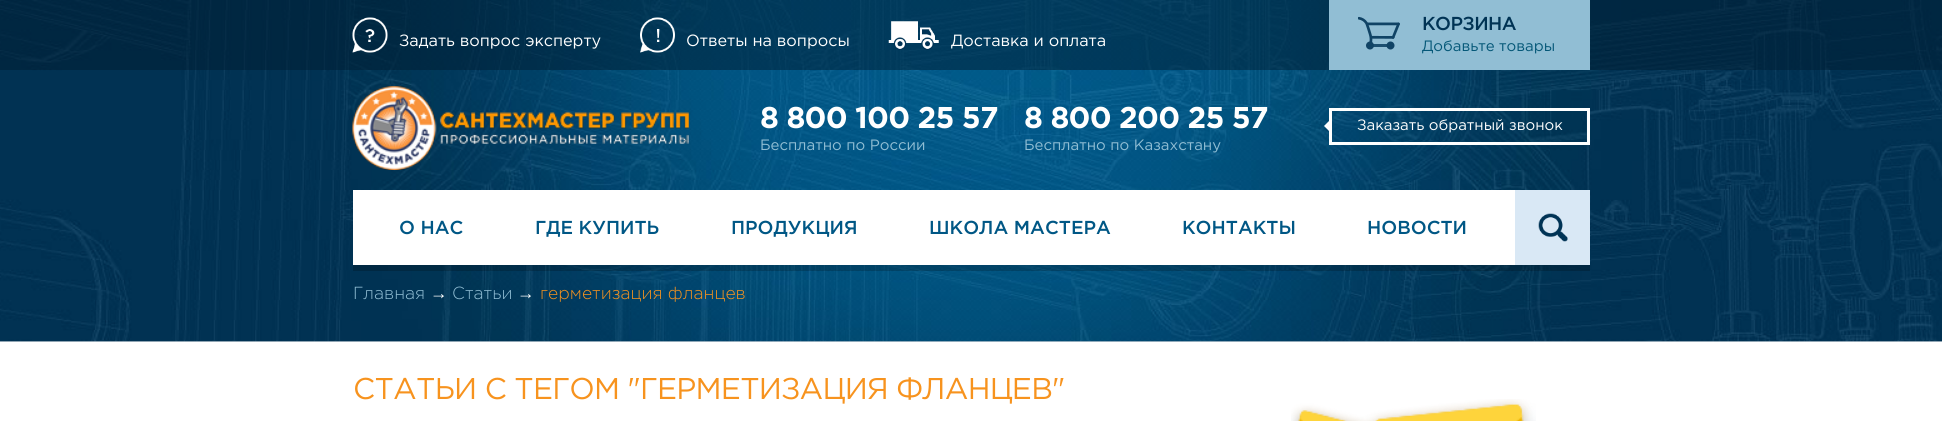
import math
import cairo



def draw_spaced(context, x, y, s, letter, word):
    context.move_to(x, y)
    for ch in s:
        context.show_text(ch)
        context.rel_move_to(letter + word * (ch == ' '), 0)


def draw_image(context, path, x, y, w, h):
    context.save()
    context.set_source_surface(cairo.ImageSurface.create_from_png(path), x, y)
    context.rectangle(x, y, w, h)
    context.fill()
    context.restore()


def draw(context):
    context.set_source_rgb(1, 1, 1)
    context.paint()
    draw_image(context, "images/1.png", 0, 0, 1942, 342)
    context.set_source_rgba(0, 29 / 255, 49 / 255, 0.5)
    context.rectangle(0, 0, 1942, 70)
    context.fill()
    draw_image(context, "images/2.png", 352, 17, 36, 36)
    draw_image(context, "images/3.png", 640, 17, 35, 36)
    draw_image(context, "images/4.png", 888, 21, 51, 29)
    context.set_source_rgb(145 / 255, 190 / 255, 212 / 255)
    context.rectangle(1329, 0, 261, 70)
    context.fill()
    draw_image(context, "images/5.png", 1358, 16, 42, 34)
    draw_image(context, "images/6.png", 352, 86, 337, 84)
    context.rectangle(1330.5, 109.5, 258, 34)
    context.set_source_rgb(1, 1, 1)
    context.set_line_width(3)
    context.stroke()
    context.new_path()
    context.move_to(1329, 121)
    context.line_to(1329, 131)
    context.line_to(1324, 126)
    context.close_path()
    context.fill()
    context.set_source_rgba(0, 0, 0, 0.2)
    context.rectangle(353, 265, 1237, 6)
    context.fill()
    context.set_source_rgb(1, 1, 1)
    context.rectangle(353, 190, 1162, 75)
    context.fill()
    context.set_source_rgb(217 / 255, 232 / 255, 245 / 255)
    context.rectangle(1515, 190, 75, 75)
    context.fill()
    draw_image(context, "images/7.png", 1538, 213, 30, 29)
    draw_image(context, "images/8.png", 1291, 399, 245, 22)
    context.select_font_face("Gotham")
    context.set_font_size(16.25)
    context.set_source_rgb(1, 1, 1)
    context.move_to(399, 46)
    context.show_text("Задать вопрос эксперту")
    context.move_to(686, 46)
    context.show_text("Ответы на вопросы")
    context.move_to(951, 46)
    context.show_text("Доставка и оплата")
    context.select_font_face("Gotham Medium")
    context.set_font_size(18.75)
    context.set_source_rgb(0, 51 / 255, 84 / 255)
    draw_spaced(context, 1422, 30, "КОРЗИНА", -0.5, 0)
    context.select_font_face("Gotham")
    context.set_font_size(15)
    context.set_source_rgb(4 / 255, 87 / 255, 119 / 255)
    context.move_to(1422, 51)
    context.show_text("Добавьте товары")
    context.select_font_face("Gotham", cairo.FontSlant.NORMAL, cairo.FontWeight.BOLD)
    context.set_font_size(30)
    context.set_source_rgb(1, 1, 1)
    draw_spaced(context, 760, 128, "8 800 100 25 57", -0.75, 0)
    context.select_font_face("Gotham")
    context.set_font_size(15)
    context.set_source_rgb(145 / 255, 190 / 255, 212 / 255)
    context.move_to(760, 150)
    context.show_text("Бесплатно по России")
    context.select_font_face("Gotham", cairo.FontSlant.NORMAL, cairo.FontWeight.BOLD)
    context.set_font_size(30)
    context.set_source_rgb(1, 1, 1)
    draw_spaced(context, 1024, 128, "8 800 200 25 57", -0.75, 0)
    context.select_font_face("Gotham")
    context.set_font_size(15)
    context.set_source_rgb(145 / 255, 190 / 255, 212 / 255)
    context.move_to(1024, 150)
    context.show_text("Бесплатно по Казахстану")
    context.set_source_rgb(1, 1, 1)
    context.move_to(1357, 130)
    context.show_text("Заказать обратный звонок")
    context.select_font_face("Gotham Medium")
    context.set_font_size(18.75)
    context.set_source_rgb(0, 87 / 255, 133 / 255)
    context.move_to(399, 234)
    context.show_text("О НАС")
    context.move_to(535, 234)
    context.show_text("ГДЕ КУПИТЬ")
    context.move_to(731, 234)
    context.show_text("ПРОДУКЦИЯ")
    context.move_to(929, 234)
    context.show_text("ШКОЛА МАСТЕРА")
    context.move_to(1182, 234)
    context.show_text("КОНТАКТЫ")
    context.move_to(1367, 234)
    context.show_text("НОВОСТИ")
    context.select_font_face("Gotham Light")
    context.set_font_size(17.5)
    context.set_source_rgb(145 / 255, 190 / 255, 212 / 255)
    context.move_to(353, 299)
    context.show_text("Главная")
    context.select_font_face("Liberation Sans")
    context.set_source_rgb(1, 1, 1)
    context.move_to(430, 299)
    context.show_text("→")
    context.select_font_face("Gotham Light")
    context.set_source_rgb(145 / 255, 190 / 255, 212 / 255)
    context.move_to(452, 299)
    context.show_text("Статьи")
    context.select_font_face("Liberation Sans")
    context.set_source_rgb(1, 1, 1)
    context.move_to(517, 299)
    context.show_text("→")
    context.select_font_face("Gotham Light")
    context.set_source_rgb(247 / 255, 147 / 255, 30 / 255)
    context.move_to(540, 299)
    context.show_text("герметизация фланцев")
    context.select_font_face("Gotham")
    context.set_font_size(30)
    draw_spaced(context, 353, 399, "СТАТЬИ С ТЕГОМ \"ГЕРМЕТИЗАЦИЯ ФЛАНЦЕВ\"", -0.75, 0)


surface = cairo.ImageSurface(cairo.Format.RGB24, 1942, 421)
context = cairo.Context(surface)
options = cairo.FontOptions()
options.set_hint_metrics(cairo.HintMetrics.OFF)
options.set_hint_style(cairo.HintStyle.NONE)
context.set_font_options(options)
context.set_miter_limit(4)
draw(context)
surface.write_to_png("out.png")
